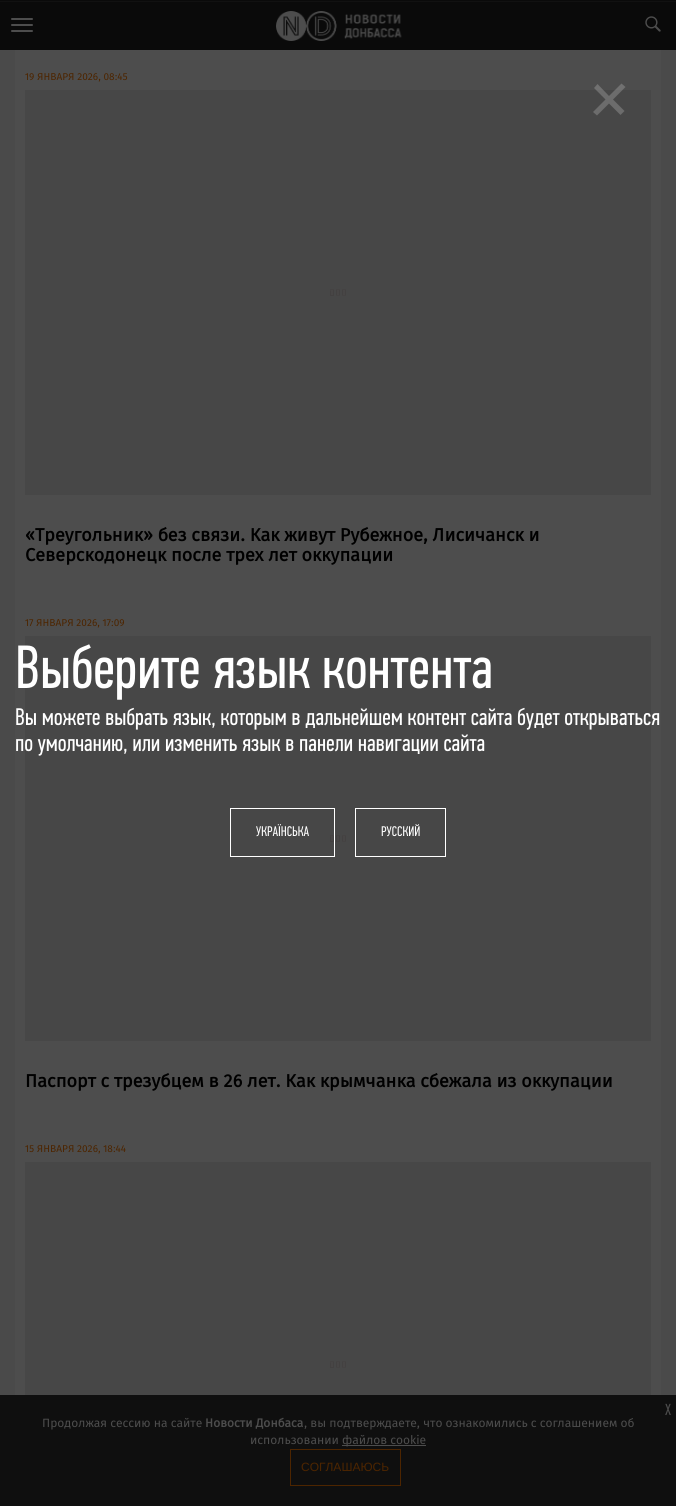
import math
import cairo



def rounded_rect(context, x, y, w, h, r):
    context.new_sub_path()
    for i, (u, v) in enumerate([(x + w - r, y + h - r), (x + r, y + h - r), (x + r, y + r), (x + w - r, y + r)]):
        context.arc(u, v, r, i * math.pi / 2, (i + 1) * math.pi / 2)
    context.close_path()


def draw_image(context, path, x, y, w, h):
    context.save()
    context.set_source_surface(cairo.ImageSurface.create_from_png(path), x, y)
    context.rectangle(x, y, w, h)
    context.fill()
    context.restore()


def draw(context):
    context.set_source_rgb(74 / 255, 74 / 255, 74 / 255)
    context.paint()
    context.set_source_rgb(10 / 255, 10 / 255, 10 / 255)
    context.rectangle(0, 0, 676, 50)
    context.fill()
    context.set_source_rgb(17 / 255, 17 / 255, 17 / 255)
    context.rectangle(0, 1, 676, 1)
    context.fill()
    draw_image(context, "images/1.png", 276, 11, 126, 30)
    draw_image(context, "images/2.png", 645, 16, 16, 16)
    context.set_source_rgb(77 / 255, 77 / 255, 77 / 255)
    rounded_rect(context, 11, 18, 22, 2, 1)
    context.fill()
    rounded_rect(context, 11, 24, 22, 2, 1)
    context.fill()
    rounded_rect(context, 11, 30, 22, 2, 1)
    context.fill()
    context.set_source_rgb(15 / 255, 15 / 255, 15 / 255)
    context.rectangle(0, 1395, 676, 111)
    context.fill()
    context.set_source_rgb(77 / 255, 77 / 255, 77 / 255)
    context.rectangle(15, 50, 646, 1345)
    context.fill()
    context.set_source_rgb(71 / 255, 71 / 255, 71 / 255)
    context.rectangle(25, 90, 626, 405)
    context.fill()
    draw_image(context, "images/3.png", 330, 289, 16, 7)
    context.rectangle(25, 636, 626, 405)
    context.fill()
    draw_image(context, "images/3.png", 330, 835, 16, 7)
    context.rectangle(25, 1162, 626, 233)
    context.fill()
    draw_image(context, "images/3.png", 330, 1361, 16, 7)
    draw_image(context, "images/4.png", 665, 1403, 6, 12)
    context.set_source_rgb(77 / 255, 77 / 255, 77 / 255)
    context.rectangle(342, 1445, 84, 1)
    context.fill()
    context.rectangle(290.5, 1449.5, 110, 36)
    context.set_source_rgb(77 / 255, 37 / 255, 0)
    context.set_line_width(1)
    context.stroke()
    context.set_source_rgba(1, 1, 1, 0.2)
    context.new_path()
    context.move_to(609, 103.5)
    context.line_to(597, 115.5)
    context.line_to(593, 112)
    context.line_to(605.5, 99.5)
    context.line_to(594, 88)
    context.line_to(597.5, 84)
    context.line_to(609, 96)
    context.line_to(621.5, 83.5)
    context.line_to(625.5, 87)
    context.line_to(613, 99.5)
    context.line_to(624.5, 111)
    context.line_to(620.5, 115)
    context.close_path()
    context.fill()
    draw_image(context, "images/5.png", 18, 644, 473, 56)
    draw_image(context, "images/6.png", 16, 707, 644, 23)
    draw_image(context, "images/7.png", 16, 734, 469, 22)
    context.rectangle(230.5, 808.5, 104, 48)
    context.set_source_rgb(1, 1, 1)
    context.stroke()
    draw_image(context, "images/8.png", 256, 824, 53, 13)
    context.rectangle(355.5, 808.5, 90, 48)
    context.stroke()
    draw_image(context, "images/9.png", 381, 824, 39, 13)
    context.select_font_face("Fira Sans")
    context.set_font_size(10)
    context.set_source_rgb(77 / 255, 37 / 255, 0)
    context.move_to(25, 80)
    context.show_text("19 ЯНВАРЯ 2026, 08:45")
    context.select_font_face("Fira Sans", cairo.FontSlant.NORMAL, cairo.FontWeight.BOLD)
    context.set_font_size(18)
    context.set_source_rgb(0, 0, 0)
    context.move_to(25, 541)
    context.show_text("«Треугольник» без связи. Как живут Рубежное, Лисичанск и")
    context.move_to(25, 561)
    context.show_text("Северскодонецк после трех лет оккупации")
    context.select_font_face("Fira Sans")
    context.set_font_size(10)
    context.set_source_rgb(77 / 255, 37 / 255, 0)
    context.move_to(25, 626)
    context.show_text("17 ЯНВАРЯ 2026, 17:09")
    context.select_font_face("Fira Sans", cairo.FontSlant.NORMAL, cairo.FontWeight.BOLD)
    context.set_font_size(18)
    context.set_source_rgb(0, 0, 0)
    context.move_to(25, 1087)
    context.show_text("Паспорт с трезубцем в 26 лет. Как крымчанка сбежала из оккупации")
    context.select_font_face("Fira Sans")
    context.set_font_size(10)
    context.set_source_rgb(77 / 255, 37 / 255, 0)
    context.move_to(25, 1152)
    context.show_text("15 ЯНВАРЯ 2026, 18:44")
    context.set_font_size(12)
    context.set_source_rgb(77 / 255, 77 / 255, 77 / 255)
    context.move_to(42, 1427)
    context.show_text("Продолжая сессию на сайте")
    context.select_font_face("Fira Sans", cairo.FontSlant.NORMAL, cairo.FontWeight.BOLD)
    context.move_to(205, 1427)
    context.show_text("Новости Донбаса")
    context.select_font_face("Fira Sans")
    context.move_to(304, 1427)
    context.show_text(", вы подтверждаете, что ознакомились с соглашением об")
    context.move_to(250, 1444)
    context.show_text("использовании")
    context.move_to(342, 1444)
    context.show_text("файлов cookie")
    context.select_font_face("Liberation Sans")
    context.set_source_rgb(77 / 255, 37 / 255, 0)
    context.move_to(301, 1471)
    context.show_text("СОГЛАШАЮСЬ")


surface = cairo.ImageSurface(cairo.Format.RGB24, 676, 1506)
context = cairo.Context(surface)
options = cairo.FontOptions()
options.set_hint_metrics(cairo.HintMetrics.OFF)
options.set_hint_style(cairo.HintStyle.NONE)
context.set_font_options(options)
context.set_miter_limit(4)
draw(context)
surface.write_to_png("out.png")
